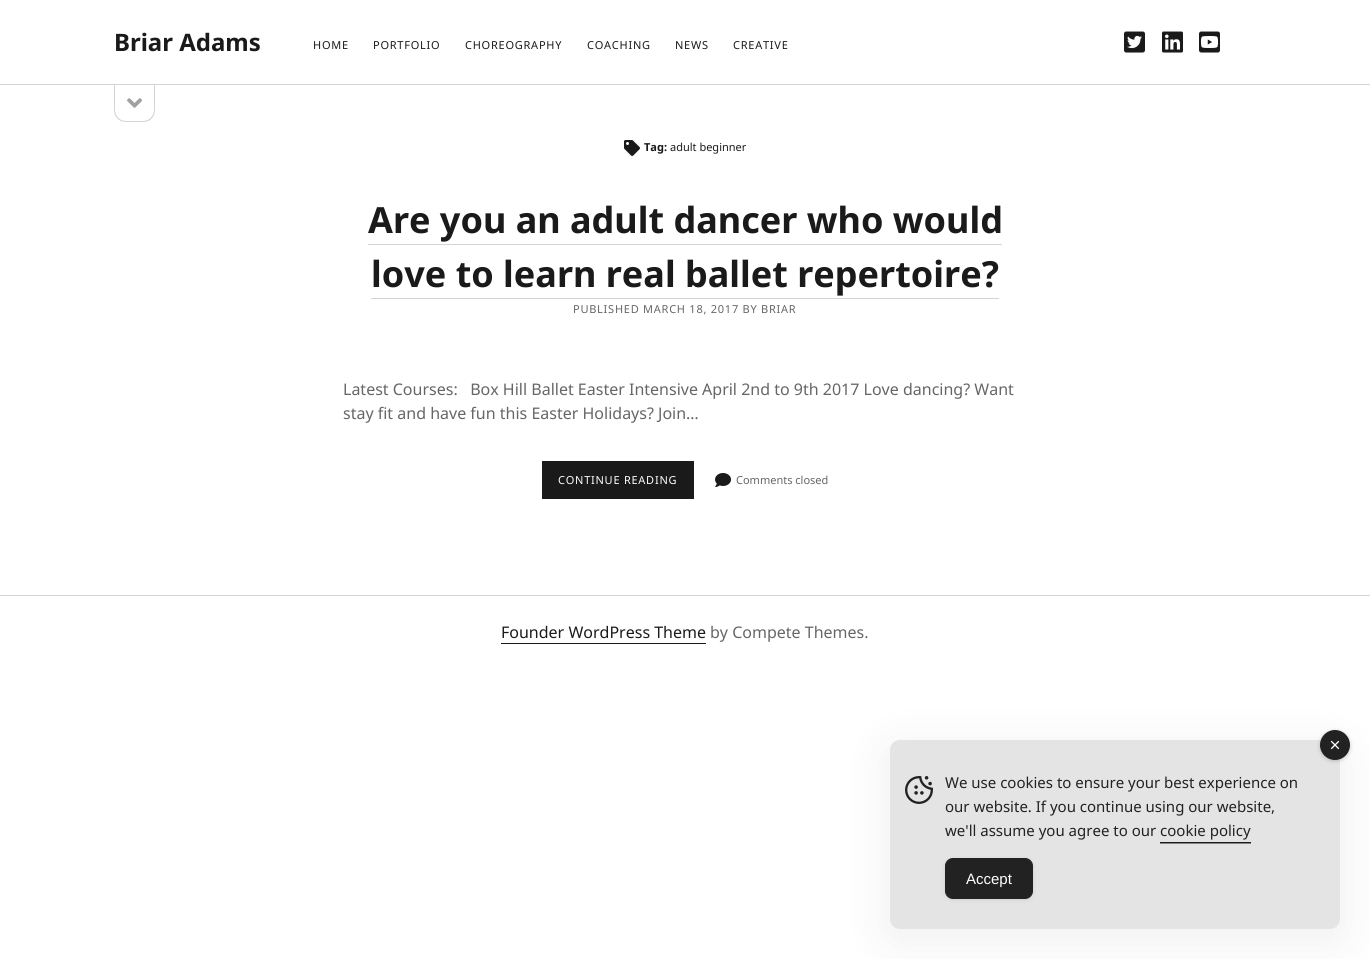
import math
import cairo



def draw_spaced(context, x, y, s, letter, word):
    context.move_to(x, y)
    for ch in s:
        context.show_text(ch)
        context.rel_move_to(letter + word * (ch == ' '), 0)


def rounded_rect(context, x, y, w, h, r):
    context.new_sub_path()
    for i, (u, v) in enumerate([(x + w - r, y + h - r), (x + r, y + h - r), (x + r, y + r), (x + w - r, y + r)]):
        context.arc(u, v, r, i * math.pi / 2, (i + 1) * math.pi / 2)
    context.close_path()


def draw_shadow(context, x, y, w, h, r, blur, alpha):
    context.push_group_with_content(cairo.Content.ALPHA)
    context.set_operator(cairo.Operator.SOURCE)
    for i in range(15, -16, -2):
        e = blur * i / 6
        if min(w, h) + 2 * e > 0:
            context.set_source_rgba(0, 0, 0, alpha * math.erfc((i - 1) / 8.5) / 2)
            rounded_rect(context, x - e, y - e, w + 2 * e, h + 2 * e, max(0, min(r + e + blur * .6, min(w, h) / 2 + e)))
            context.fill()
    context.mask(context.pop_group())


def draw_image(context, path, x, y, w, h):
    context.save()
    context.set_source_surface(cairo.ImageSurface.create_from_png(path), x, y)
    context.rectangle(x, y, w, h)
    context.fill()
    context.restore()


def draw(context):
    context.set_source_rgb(1, 1, 1)
    context.paint()
    context.set_source_rgb(212 / 255, 212 / 255, 212 / 255)
    context.rectangle(0, 84, 1370, 1)
    context.fill()
    draw_image(context, "images/1.png", 1124, 31, 21, 22)
    draw_image(context, "images/2.png", 1162, 31, 21, 22)
    draw_image(context, "images/3.png", 1199, 31, 21, 22)
    context.set_fill_rule(cairo.FillRule.EVEN_ODD)
    context.new_path()
    context.move_to(114, 85)
    context.line_to(155, 85)
    context.line_to(155, 110)
    context.curve_to(155, 117, 150, 122, 143, 122)
    context.line_to(126, 122)
    context.curve_to(119, 122, 114, 117, 114, 110)
    context.close_path()
    context.move_to(115, 85)
    context.line_to(154, 85)
    context.line_to(154, 110)
    context.curve_to(154, 116, 149, 121, 143, 121)
    context.line_to(126, 121)
    context.curve_to(120, 121, 115, 116, 115, 110)
    context.close_path()
    context.fill()
    draw_image(context, "images/4.png", 127, 98, 15, 10)
    draw_image(context, "images/5.png", 624, 140, 16, 16)
    context.rectangle(368, 244, 634, 1)
    context.fill()
    context.rectangle(371, 298, 628, 1)
    context.fill()
    context.set_source_rgb(26 / 255, 26 / 255, 26 / 255)
    context.rectangle(542, 461, 152, 38)
    context.fill()
    draw_image(context, "images/6.png", 715, 473, 16, 14)
    context.set_source_rgb(212 / 255, 212 / 255, 212 / 255)
    context.rectangle(0, 595, 1370, 1)
    context.fill()
    context.set_source_rgb(26 / 255, 26 / 255, 26 / 255)
    context.rectangle(501, 643, 205, 1)
    context.fill()
    context.set_source_rgb(0, 0, 0)
    draw_shadow(context, 880, 740, 470, 209, 20, 20, 0.05)
    context.set_source_rgb(228 / 255, 228 / 255, 228 / 255)
    rounded_rect(context, 890, 740, 450, 189, 10)
    context.fill()
    context.set_source_rgb(0, 0, 0)
    draw_shadow(context, 1320, 731, 30, 30, 15, 2, 0.2)
    context.set_source_rgb(34 / 255, 34 / 255, 34 / 255)
    context.arc(1335, 745, 15, 0, 2 * math.pi)
    context.fill()
    draw_image(context, "images/7.png", 1330, 740, 10, 10)
    draw_image(context, "images/8.png", 905, 776, 28, 28)
    context.set_source_rgb(26 / 255, 26 / 255, 26 / 255)
    context.rectangle(1160, 842, 91, 1)
    context.fill()
    context.set_source_rgb(131 / 255, 131 / 255, 131 / 255)
    context.rectangle(1160, 843, 91, 1)
    context.fill()
    context.set_source_rgb(0, 0, 0)
    draw_shadow(context, 945, 859, 88, 41, 8, 2, 0.1)
    context.set_source_rgb(34 / 255, 34 / 255, 34 / 255)
    rounded_rect(context, 945.5, 858.5, 87, 40, 7.5)
    context.fill_preserve()
    context.set_line_width(1)
    context.stroke()
    context.select_font_face("Noto Sans", cairo.FontSlant.NORMAL, cairo.FontWeight.BOLD)
    context.set_font_size(24)
    context.set_source_rgb(26 / 255, 26 / 255, 26 / 255)
    context.move_to(114, 51)
    context.show_text("Briar Adams")
    context.select_font_face("Noto Sans")
    context.set_font_size(11)
    draw_spaced(context, 313, 49, "HOME", 0.75, 0)
    draw_spaced(context, 373, 49, "PORTFOLIO", 0.75, 0)
    draw_spaced(context, 465, 49, "CHOREOGRAPHY", 0.75, 0)
    draw_spaced(context, 587, 49, "COACHING", 0.75, 0)
    draw_spaced(context, 675, 49, "NEWS", 0.75, 0)
    draw_spaced(context, 733, 49, "CREATIVE", 0.75, 0)
    context.select_font_face("Noto Sans", cairo.FontSlant.NORMAL, cairo.FontWeight.BOLD)
    context.move_to(644, 151)
    context.show_text("Tag:")
    context.select_font_face("Noto Sans")
    context.move_to(670, 151)
    context.show_text("adult beginner")
    context.select_font_face("Noto Sans", cairo.FontSlant.NORMAL, cairo.FontWeight.BOLD)
    context.set_font_size(36)
    context.move_to(368, 233)
    context.show_text("Are you an adult dancer who would")
    context.move_to(371, 287)
    context.show_text("love to learn real ballet repertoire?")
    context.select_font_face("Noto Sans")
    context.set_font_size(11)
    context.set_source_rgb(102 / 255, 102 / 255, 102 / 255)
    draw_spaced(context, 573, 313, "PUBLISHED MARCH 18, 2017 BY BRIAR", 0.75, 0)
    context.set_font_size(16)
    context.move_to(343, 395)
    context.show_text("Latest Courses:   Box Hill Ballet Easter Intensive April 2nd to 9th 2017 Love dancing? Want")
    context.move_to(343, 419)
    context.show_text("stay fit and have fun this Easter Holidays? Join…")
    context.set_font_size(11)
    context.set_source_rgb(1, 1, 1)
    draw_spaced(context, 558, 484, "CONTINUE READING", 0.75, 0)
    context.set_source_rgb(102 / 255, 102 / 255, 102 / 255)
    context.move_to(736, 484)
    context.show_text("Comments closed")
    context.set_font_size(16)
    context.set_source_rgb(26 / 255, 26 / 255, 26 / 255)
    context.move_to(501, 638)
    context.show_text("Founder WordPress Theme")
    context.set_source_rgb(102 / 255, 102 / 255, 102 / 255)
    context.move_to(710, 638)
    context.show_text("by Compete Themes.")
    context.set_font_size(15)
    context.set_source_rgb(34 / 255, 34 / 255, 34 / 255)
    context.move_to(945, 788)
    context.show_text("We use cookies to ensure your best experience on")
    context.move_to(945, 812)
    context.show_text("our website. If you continue using our website,")
    context.move_to(945, 836)
    context.show_text("we'll assume you agree to our cookie policy")
    context.select_font_face("Liberation Sans")
    context.set_source_rgb(1, 1, 1)
    context.move_to(966, 884)
    context.show_text("Accept")


surface = cairo.ImageSurface(cairo.Format.RGB24, 1370, 959)
context = cairo.Context(surface)
options = cairo.FontOptions()
options.set_hint_metrics(cairo.HintMetrics.OFF)
options.set_hint_style(cairo.HintStyle.NONE)
context.set_font_options(options)
context.set_miter_limit(4)
draw(context)
surface.write_to_png("out.png")
